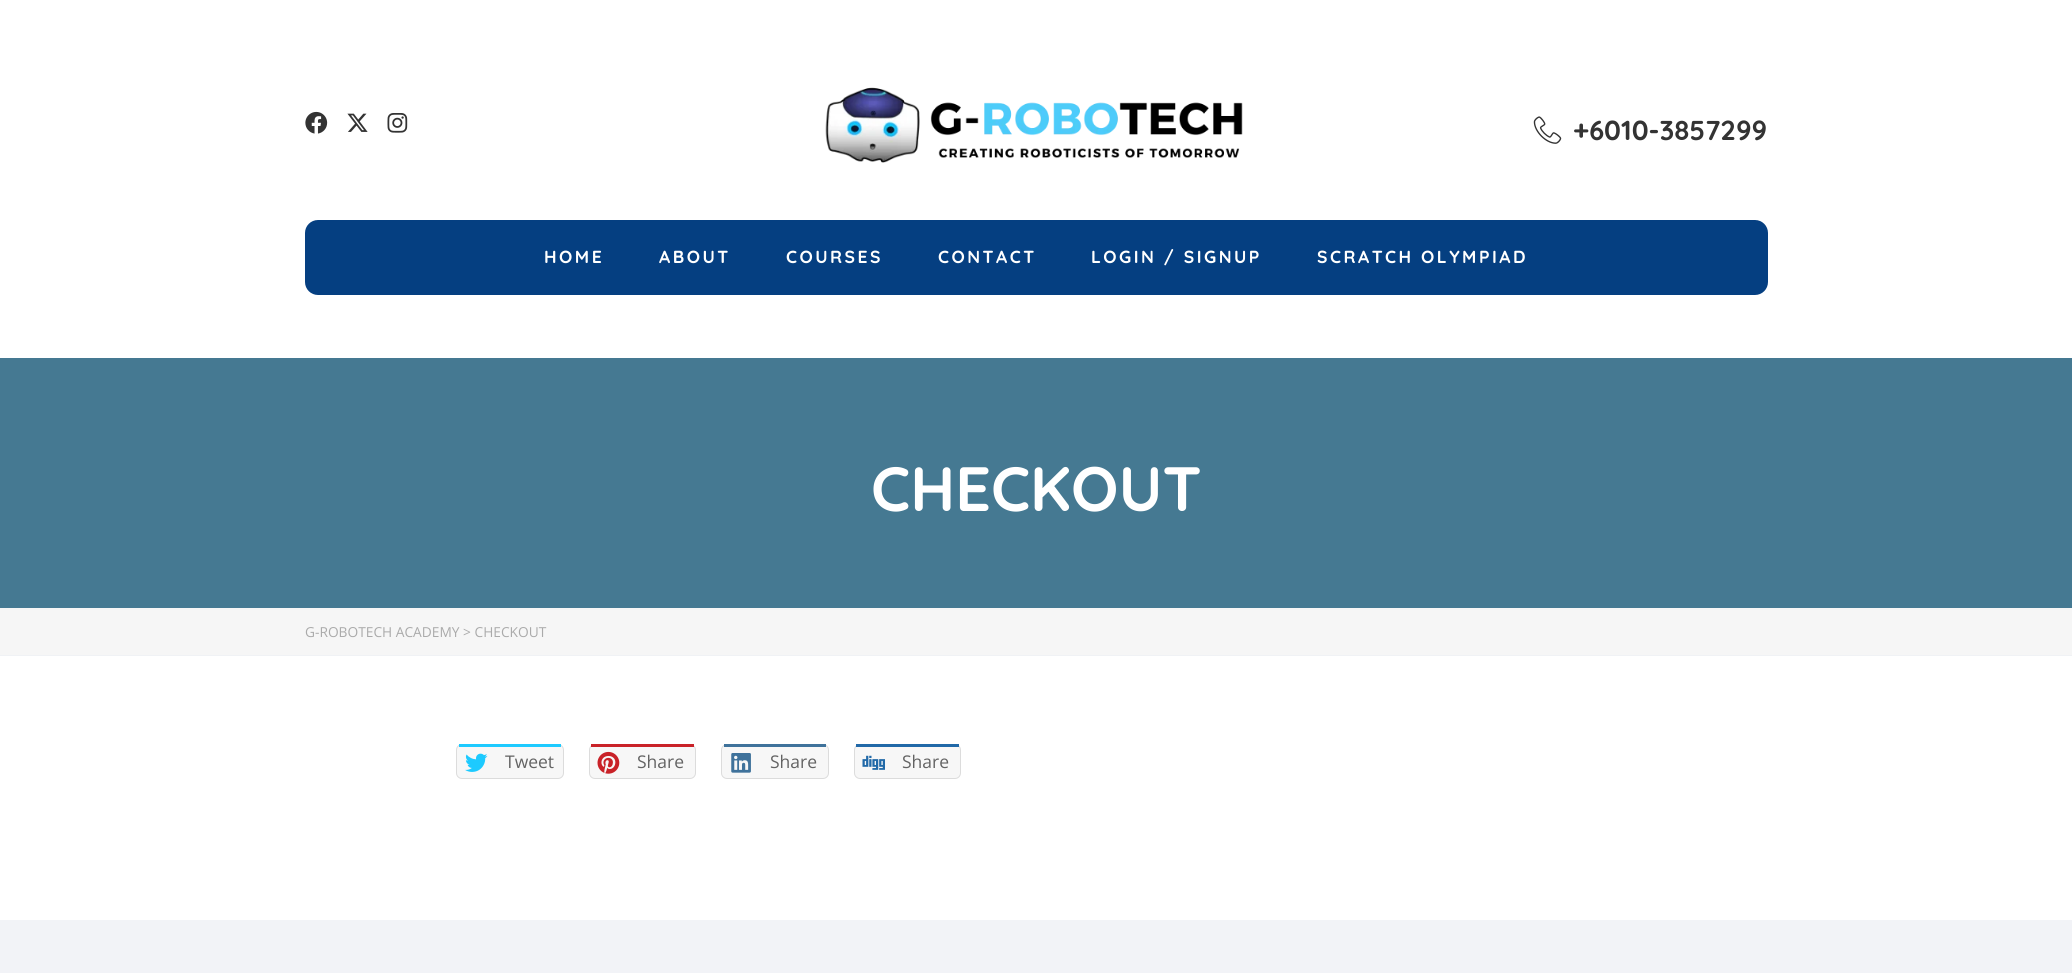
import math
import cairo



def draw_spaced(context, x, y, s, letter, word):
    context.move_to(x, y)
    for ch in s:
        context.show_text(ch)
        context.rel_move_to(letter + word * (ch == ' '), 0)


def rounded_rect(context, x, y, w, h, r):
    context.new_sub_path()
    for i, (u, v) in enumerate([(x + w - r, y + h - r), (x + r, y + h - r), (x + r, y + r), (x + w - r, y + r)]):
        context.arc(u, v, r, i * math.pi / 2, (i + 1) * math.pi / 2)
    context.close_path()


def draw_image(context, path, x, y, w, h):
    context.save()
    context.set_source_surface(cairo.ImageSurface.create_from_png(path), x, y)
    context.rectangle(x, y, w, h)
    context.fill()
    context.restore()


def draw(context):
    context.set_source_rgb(1, 1, 1)
    context.paint()
    draw_image(context, "images/1.png", 305, 111, 23, 23)
    draw_image(context, "images/2.png", 347, 113, 21, 19)
    draw_image(context, "images/3.png", 387, 113, 21, 20)
    draw_image(context, "images/4.png", 825, 87, 418, 76)
    draw_image(context, "images/5.png", 1533, 116, 29, 28)
    context.set_source_rgb(5 / 255, 63 / 255, 129 / 255)
    rounded_rect(context, 305, 220, 1463, 75, 13)
    context.fill()
    context.set_source_rgb(69 / 255, 121 / 255, 146 / 255)
    context.rectangle(0, 358, 2072, 250)
    context.fill()
    context.set_source_rgb(246 / 255, 246 / 255, 246 / 255)
    context.rectangle(0, 608, 2072, 47)
    context.fill()
    context.set_source_rgb(240 / 255, 242 / 255, 245 / 255)
    context.rectangle(0, 655, 2072, 1)
    context.fill()
    context.set_source_rgb(247 / 255, 247 / 255, 247 / 255)
    rounded_rect(context, 456.5, 744.5, 107, 34, 5.5)
    context.fill_preserve()
    context.set_source_rgb(220 / 255, 220 / 255, 220 / 255)
    context.set_line_width(1)
    context.stroke()
    context.set_source_rgb(29 / 255, 202 / 255, 1)
    context.rectangle(459, 744, 102, 3)
    context.fill()
    draw_image(context, "images/6.png", 465, 753, 23, 19)
    context.set_source_rgb(247 / 255, 247 / 255, 247 / 255)
    rounded_rect(context, 589.5, 744.5, 106, 34, 5.5)
    context.fill_preserve()
    context.set_source_rgb(220 / 255, 220 / 255, 220 / 255)
    context.stroke()
    context.set_source_rgb(201 / 255, 34 / 255, 40 / 255)
    context.rectangle(591, 744, 103, 3)
    context.fill()
    draw_image(context, "images/7.png", 597, 751, 23, 23)
    context.set_source_rgb(247 / 255, 247 / 255, 247 / 255)
    rounded_rect(context, 721.5, 744.5, 107, 34, 5.5)
    context.fill_preserve()
    context.set_source_rgb(220 / 255, 220 / 255, 220 / 255)
    context.stroke()
    context.set_source_rgb(63 / 255, 114 / 255, 155 / 255)
    context.rectangle(724, 744, 102, 3)
    context.fill()
    draw_image(context, "images/8.png", 731, 753, 20, 20)
    context.set_source_rgb(247 / 255, 247 / 255, 247 / 255)
    rounded_rect(context, 854.5, 744.5, 106, 34, 5.5)
    context.fill_preserve()
    context.set_source_rgb(220 / 255, 220 / 255, 220 / 255)
    context.stroke()
    context.set_source_rgb(33 / 255, 105 / 255, 168 / 255)
    context.rectangle(856, 744, 103, 3)
    context.fill()
    draw_image(context, "images/9.png", 862, 755, 23, 15)
    context.set_source_rgb(242 / 255, 243 / 255, 247 / 255)
    context.rectangle(0, 920, 2072, 53)
    context.fill()
    context.select_font_face("Quicksand Light")
    context.set_font_size(27.5)
    context.set_source_rgb(51 / 255, 51 / 255, 51 / 255)
    context.move_to(1573, 140)
    context.show_text("+6010-3857299")
    context.set_font_size(17.5)
    context.set_source_rgb(1, 1, 1)
    draw_spaced(context, 544, 263, "HOME", 2.5, 0)
    draw_spaced(context, 659, 263, "ABOUT", 2.5, 0)
    draw_spaced(context, 786, 263, "COURSES", 2.5, 0)
    draw_spaced(context, 938, 263, "CONTACT", 2.5, 0)
    draw_spaced(context, 1091, 263, "LOGIN / SIGNUP", 2.5, 0)
    draw_spaced(context, 1317, 263, "SCRATCH OLYMPIAD", 2.5, 0)
    context.set_font_size(62.5)
    context.move_to(871, 511)
    context.show_text("CHECKOUT")
    context.select_font_face("Open Sans")
    context.set_font_size(13.75)
    context.set_source_rgb(170 / 255, 170 / 255, 170 / 255)
    context.move_to(305, 637)
    context.show_text("G-ROBOTECH ACADEMY > CHECKOUT")
    context.set_font_size(17.5)
    context.set_source_rgb(99 / 255, 99 / 255, 99 / 255)
    context.move_to(505, 768)
    context.show_text("Tweet")
    context.move_to(637, 768)
    context.show_text("Share")
    context.move_to(770, 768)
    context.show_text("Share")
    context.move_to(902, 768)
    context.show_text("Share")


surface = cairo.ImageSurface(cairo.Format.RGB24, 2072, 973)
context = cairo.Context(surface)
options = cairo.FontOptions()
options.set_hint_metrics(cairo.HintMetrics.OFF)
options.set_hint_style(cairo.HintStyle.NONE)
context.set_font_options(options)
context.set_miter_limit(4)
draw(context)
surface.write_to_png("out.png")
